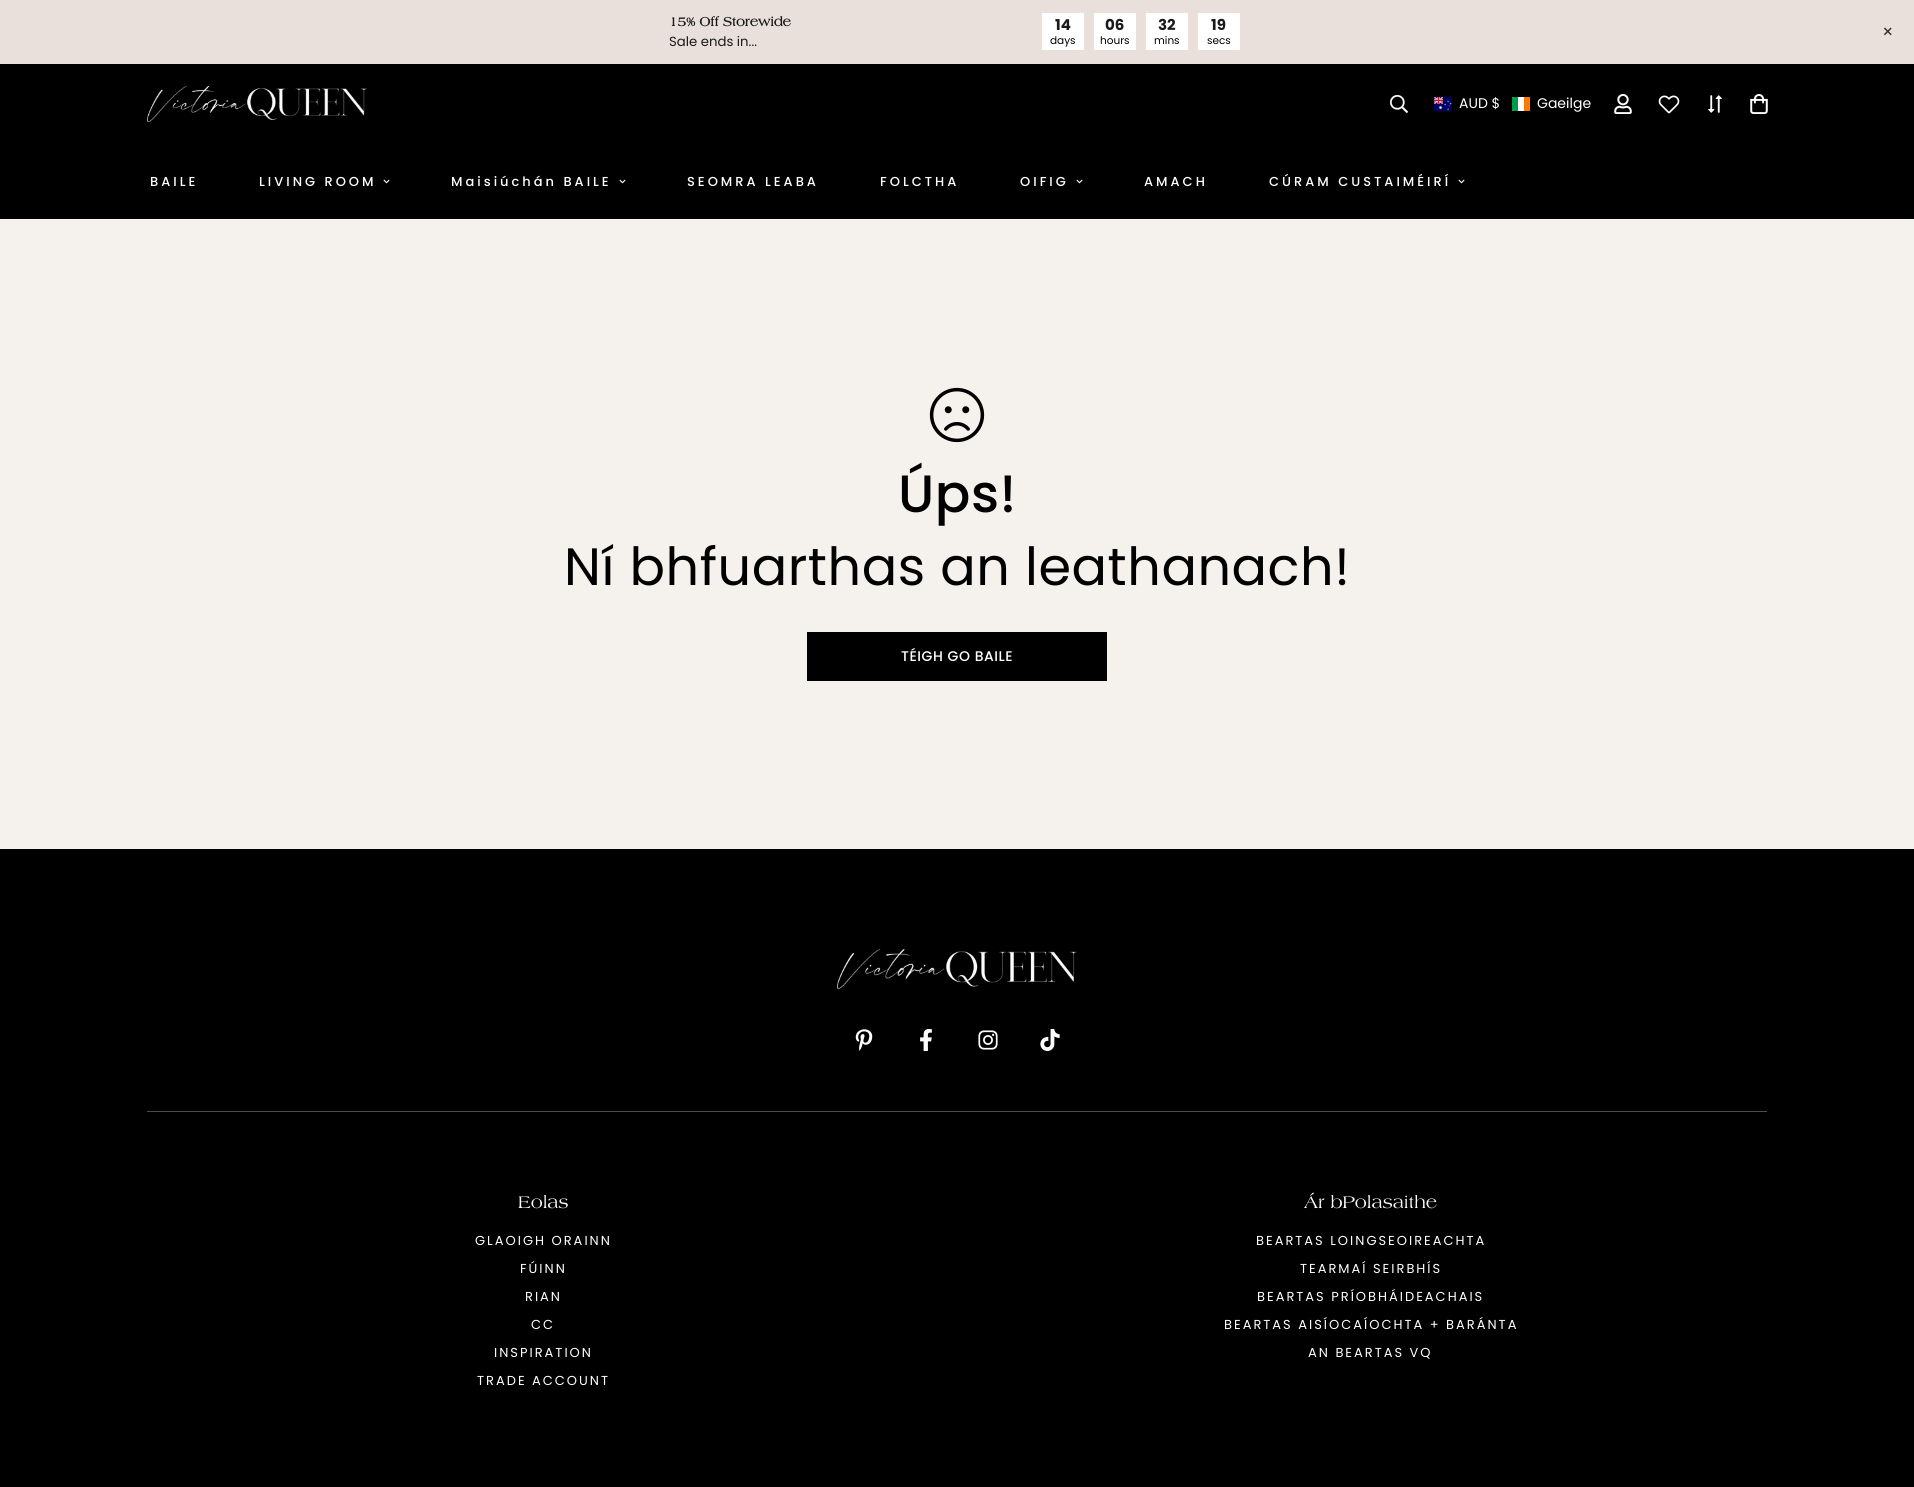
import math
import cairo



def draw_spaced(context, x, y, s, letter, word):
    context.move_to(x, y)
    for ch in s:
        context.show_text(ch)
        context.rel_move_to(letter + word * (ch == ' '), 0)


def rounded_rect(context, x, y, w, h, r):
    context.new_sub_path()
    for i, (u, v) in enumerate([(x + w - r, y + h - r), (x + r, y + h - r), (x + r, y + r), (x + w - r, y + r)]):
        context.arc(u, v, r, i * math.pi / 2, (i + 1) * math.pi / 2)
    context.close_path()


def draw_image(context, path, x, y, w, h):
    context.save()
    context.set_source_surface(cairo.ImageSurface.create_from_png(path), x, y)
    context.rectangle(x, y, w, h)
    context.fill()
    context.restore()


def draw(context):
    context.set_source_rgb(0, 0, 0)
    context.paint()
    context.set_source_rgb(234 / 255, 224 / 255, 219 / 255)
    context.rectangle(0, 0, 1914, 64)
    context.fill()
    context.set_source_rgb(1, 1, 1)
    context.rectangle(1042, 13, 42, 37)
    context.fill()
    context.rectangle(1094, 13, 42, 37)
    context.fill()
    context.rectangle(1146, 13, 42, 37)
    context.fill()
    context.rectangle(1198, 13, 42, 37)
    context.fill()
    draw_image(context, "images/1.png", 147, 86, 220, 36)
    draw_image(context, "images/2.png", 1390, 95, 18, 18)
    draw_image(context, "images/3.png", 1434, 97, 18, 14)
    rounded_rect(context, 1512, 97, 18, 14, 1)
    context.fill()
    context.set_source_rgb(0, 154 / 255, 73 / 255)
    context.new_path()
    context.move_to(1513, 97)
    context.line_to(1518, 97)
    context.line_to(1518, 111)
    context.line_to(1513, 111)
    context.curve_to(1512.5, 111, 1512, 110.5, 1512, 110)
    context.line_to(1512, 98)
    context.curve_to(1512, 97.5, 1512.5, 97, 1513, 97)
    context.close_path()
    context.fill()
    context.set_source_rgb(1, 121 / 255, 0)
    context.new_path()
    context.move_to(1524, 97)
    context.line_to(1529, 97)
    context.curve_to(1529.5, 97, 1530, 97.5, 1530, 98)
    context.line_to(1530, 110)
    context.curve_to(1530, 110.5, 1529.5, 111, 1529, 111)
    context.line_to(1524, 111)
    context.close_path()
    context.fill()
    draw_image(context, "images/4.png", 1614, 94, 18, 20)
    draw_image(context, "images/5.png", 1658, 95, 22, 19)
    draw_image(context, "images/6.png", 1708, 95, 14, 18)
    draw_image(context, "images/7.png", 1750, 94, 18, 20)
    draw_image(context, "images/8.png", 383, 179, 7, 5)
    draw_image(context, "images/8.png", 619, 179, 7, 5)
    draw_image(context, "images/8.png", 1076, 179, 7, 5)
    draw_image(context, "images/8.png", 1458, 179, 7, 5)
    context.set_source_rgb(245 / 255, 241 / 255, 237 / 255)
    context.rectangle(0, 219, 1914, 630)
    context.fill()
    draw_image(context, "images/9.png", 929, 387, 56, 56)
    context.set_source_rgb(0, 0, 0)
    context.rectangle(807, 632, 300, 49)
    context.fill()
    context.set_source_rgb(77 / 255, 77 / 255, 77 / 255)
    context.rectangle(147, 1111, 1620, 1)
    context.fill()
    draw_image(context, "images/10.png", 837, 949, 240, 40)
    draw_image(context, "images/11.png", 855, 1029, 18, 22)
    draw_image(context, "images/12.png", 920, 1029, 12, 22)
    draw_image(context, "images/13.png", 978, 1030, 20, 20)
    draw_image(context, "images/14.png", 1040, 1029, 20, 22)
    context.select_font_face("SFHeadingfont", cairo.FontSlant.NORMAL, cairo.FontWeight.BOLD)
    context.set_font_size(13.25)
    context.set_source_rgb(26 / 255, 26 / 255, 26 / 255)
    context.move_to(669, 26)
    context.show_text("15% Off Storewide")
    context.select_font_face("Poppins")
    context.move_to(669, 46)
    context.show_text("Sale ends in...")
    context.select_font_face("Poppins", cairo.FontSlant.NORMAL, cairo.FontWeight.BOLD)
    context.set_font_size(15)
    context.move_to(1055, 30)
    context.show_text("14")
    context.select_font_face("Poppins")
    context.set_font_size(10.5)
    context.set_source_rgb(0, 0, 0)
    context.move_to(1050, 44)
    context.show_text("days")
    context.select_font_face("Poppins", cairo.FontSlant.NORMAL, cairo.FontWeight.BOLD)
    context.set_font_size(15)
    context.set_source_rgb(26 / 255, 26 / 255, 26 / 255)
    context.move_to(1105, 30)
    context.show_text("06")
    context.select_font_face("Poppins")
    context.set_font_size(10.5)
    context.set_source_rgb(0, 0, 0)
    context.move_to(1100, 44)
    context.show_text("hours")
    context.select_font_face("Poppins", cairo.FontSlant.NORMAL, cairo.FontWeight.BOLD)
    context.set_font_size(15)
    context.set_source_rgb(26 / 255, 26 / 255, 26 / 255)
    context.move_to(1158, 30)
    context.show_text("32")
    context.select_font_face("Poppins")
    context.set_font_size(10.5)
    context.set_source_rgb(0, 0, 0)
    context.move_to(1154, 44)
    context.show_text("mins")
    context.select_font_face("Poppins", cairo.FontSlant.NORMAL, cairo.FontWeight.BOLD)
    context.set_font_size(15)
    context.set_source_rgb(26 / 255, 26 / 255, 26 / 255)
    context.move_to(1211, 30)
    context.show_text("19")
    context.select_font_face("Poppins")
    context.set_font_size(10.5)
    context.set_source_rgb(0, 0, 0)
    context.move_to(1207, 44)
    context.show_text("secs")
    context.set_font_size(18)
    context.set_source_rgb(51 / 255, 51 / 255, 51 / 255)
    context.move_to(1882, 38)
    context.show_text("×")
    context.set_font_size(14)
    context.set_source_rgb(1, 1, 1)
    context.move_to(1459, 108)
    context.show_text("AUD $")
    context.move_to(1537, 108)
    context.show_text("Gaeilge")
    context.select_font_face("Poppins Medium")
    context.set_font_size(13)
    draw_spaced(context, 150, 186, "BAILE", 3, 0)
    draw_spaced(context, 259, 186, "LIVING ROOM", 3, 0)
    draw_spaced(context, 451, 186, "Maisiúchán BAILE", 3, 0)
    draw_spaced(context, 687, 186, "SEOMRA LEABA", 3, 0)
    draw_spaced(context, 880, 186, "FOLCTHA", 3, 0)
    draw_spaced(context, 1020, 186, "OIFIG", 3, 0)
    draw_spaced(context, 1144, 186, "AMACH", 3, 0)
    draw_spaced(context, 1269, 186, "CÚRAM CUSTAIMÉIRÍ", 3, 0)
    context.set_font_size(52.5)
    context.set_source_rgb(0, 0, 0)
    draw_spaced(context, 898, 512, "Úps!", 0.55, 0)
    context.select_font_face("Poppins")
    draw_spaced(context, 564, 585, "Ní bhfuarthas an leathanach!", 0.55, 0)
    context.select_font_face("Poppins Medium")
    context.set_font_size(14)
    context.set_source_rgb(1, 1, 1)
    draw_spaced(context, 901, 661, "TÉIGH GO BAILE", 0.55, 0)
    context.select_font_face("SFHeadingfont")
    context.set_font_size(18)
    context.move_to(518, 1208)
    context.show_text("Eolas")
    context.select_font_face("Poppins")
    context.set_font_size(13)
    draw_spaced(context, 475, 1245, "GLAOIGH ORAINN", 2, 0)
    draw_spaced(context, 520, 1273, "FÚINN", 2, 0)
    draw_spaced(context, 525, 1301, "RIAN", 2, 0)
    draw_spaced(context, 531, 1329, "CC", 2, 0)
    draw_spaced(context, 494, 1357, "INSPIRATION", 2, 0)
    draw_spaced(context, 477, 1385, "TRADE ACCOUNT", 2, 0)
    context.select_font_face("SFHeadingfont")
    context.set_font_size(18)
    context.move_to(1304, 1208)
    context.show_text("Ár bPolasaithe")
    context.select_font_face("Poppins")
    context.set_font_size(13)
    draw_spaced(context, 1256, 1245, "BEARTAS LOINGSEOIREACHTA", 2, 0)
    draw_spaced(context, 1300, 1273, "TEARMAÍ SEIRBHÍS", 2, 0)
    draw_spaced(context, 1257, 1301, "BEARTAS PRÍOBHÁIDEACHAIS", 2, 0)
    draw_spaced(context, 1224, 1329, "BEARTAS AISÍOCAÍOCHTA + BARÁNTA", 2, 0)
    draw_spaced(context, 1308, 1357, "AN BEARTAS VQ", 2, 0)


surface = cairo.ImageSurface(cairo.Format.RGB24, 1914, 1487)
context = cairo.Context(surface)
options = cairo.FontOptions()
options.set_hint_metrics(cairo.HintMetrics.OFF)
options.set_hint_style(cairo.HintStyle.NONE)
context.set_font_options(options)
context.set_miter_limit(4)
draw(context)
surface.write_to_png("out.png")
